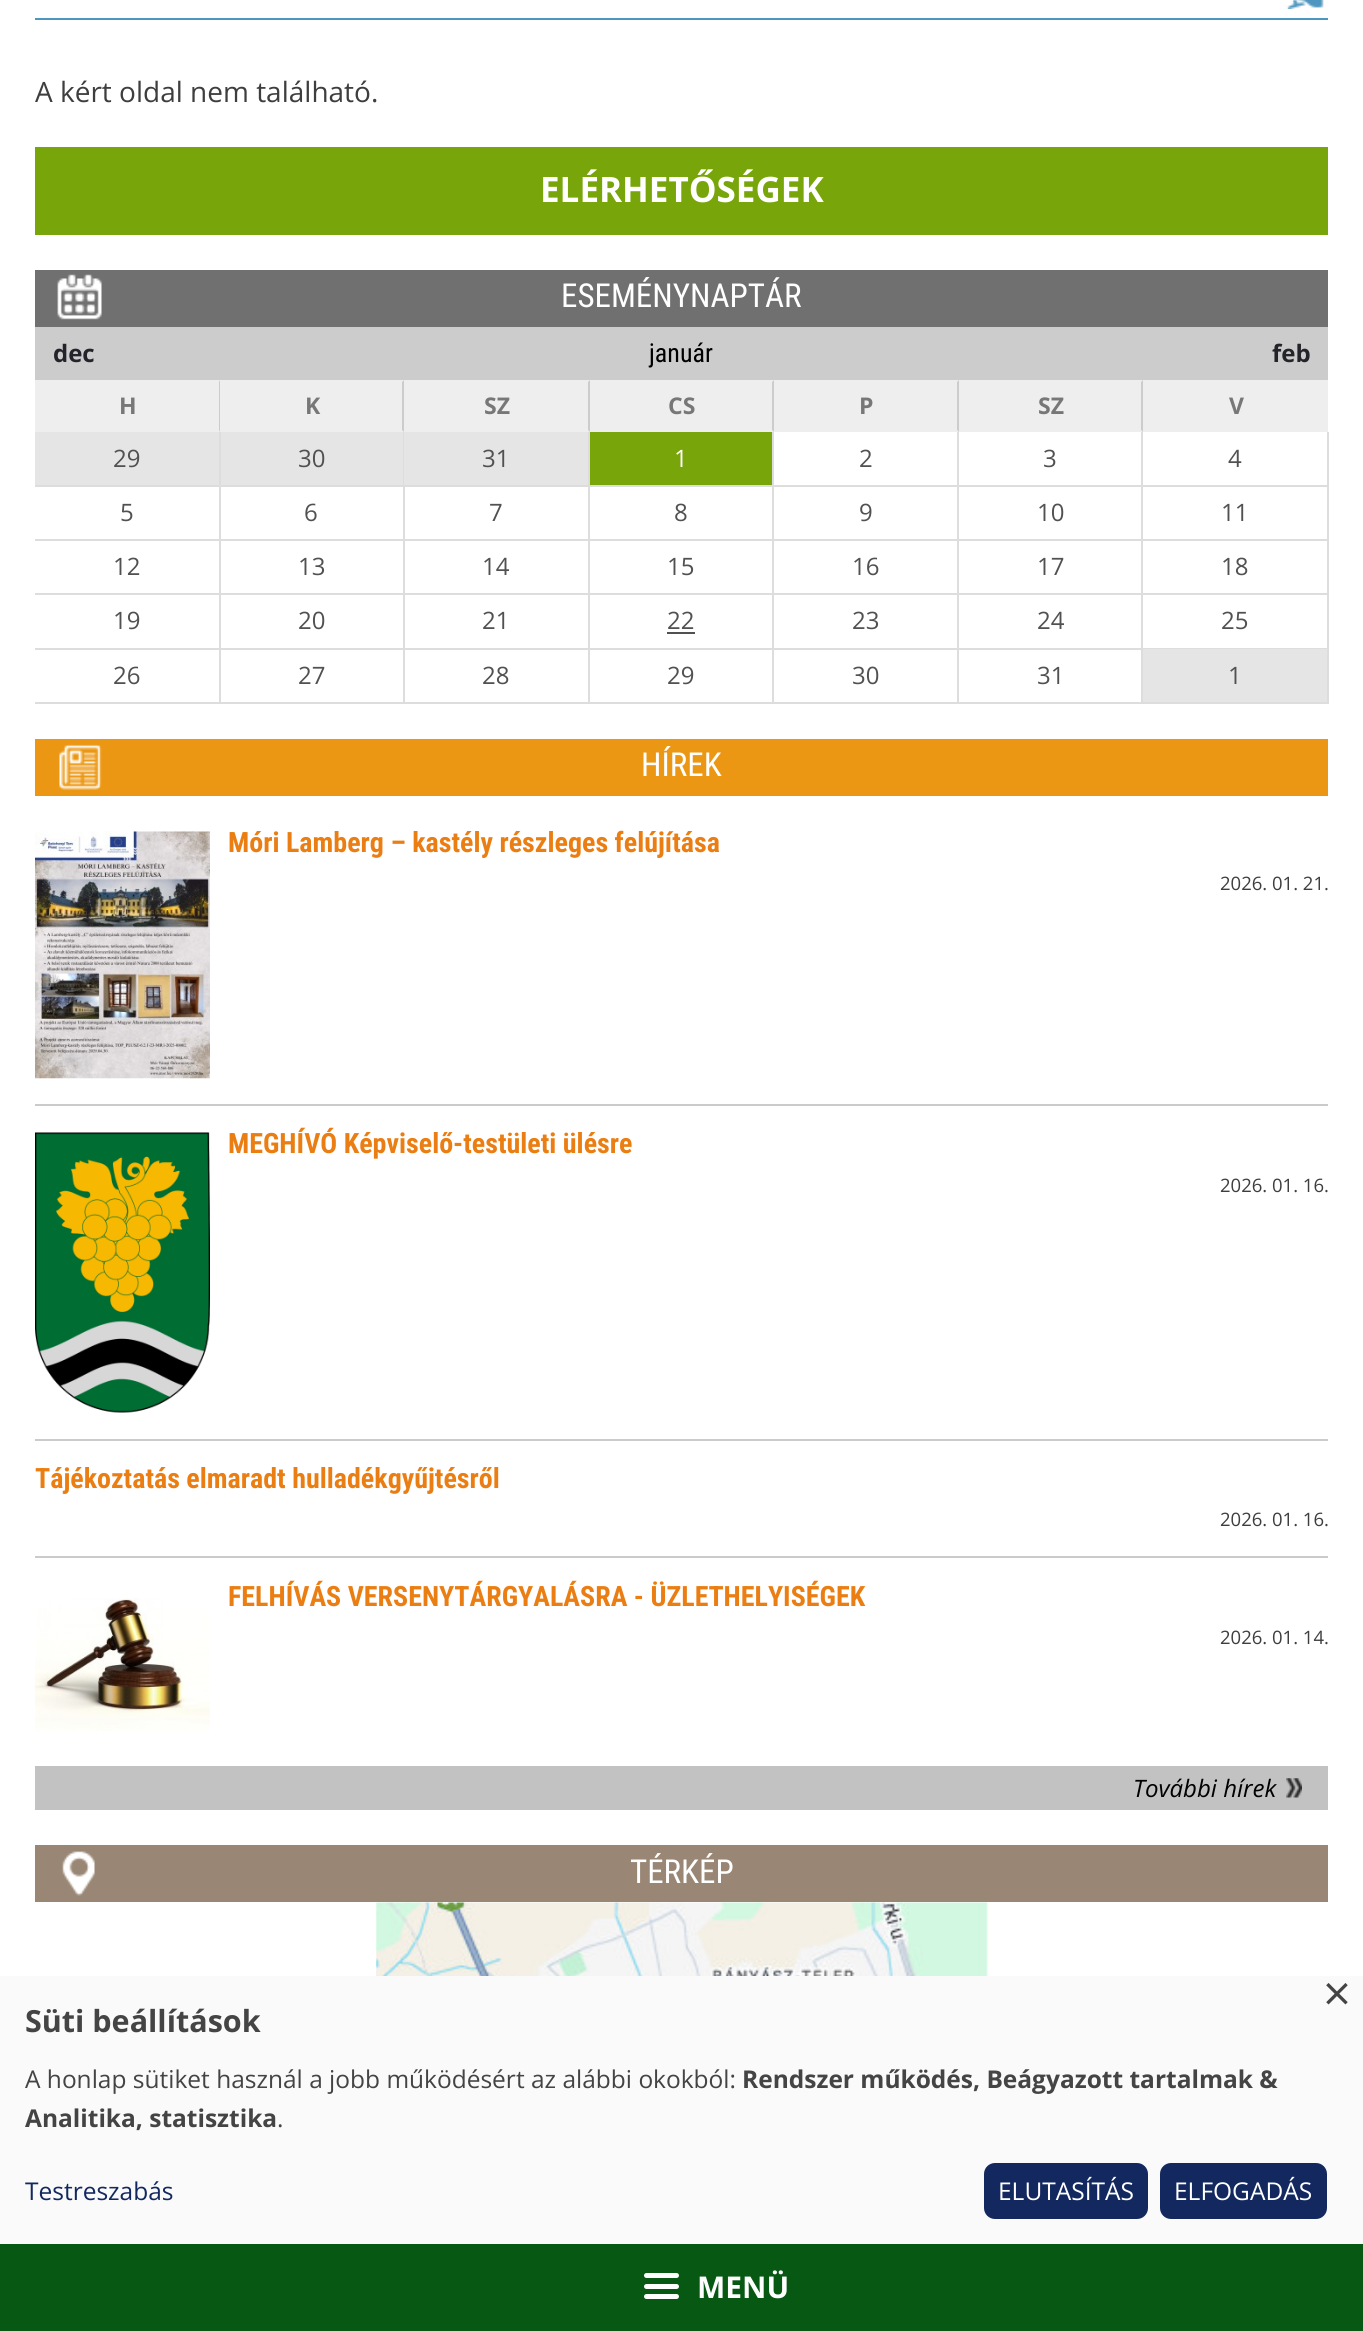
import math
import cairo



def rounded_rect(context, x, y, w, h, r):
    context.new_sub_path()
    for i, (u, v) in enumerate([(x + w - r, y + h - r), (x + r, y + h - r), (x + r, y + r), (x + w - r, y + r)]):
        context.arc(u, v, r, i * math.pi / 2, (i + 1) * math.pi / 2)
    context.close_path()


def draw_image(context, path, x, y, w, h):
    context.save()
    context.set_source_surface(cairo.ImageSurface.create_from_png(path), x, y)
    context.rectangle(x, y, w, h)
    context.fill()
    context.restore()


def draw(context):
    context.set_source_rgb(1, 1, 1)
    context.paint()
    draw_image(context, "images/1.png", 1287, 0, 37, 9)
    context.set_source_rgb(78 / 255, 150 / 255, 191 / 255)
    context.rectangle(35, 18, 1293, 2)
    context.fill()
    context.set_source_rgb(120 / 255, 165 / 255, 10 / 255)
    context.rectangle(35, 147, 1293, 88)
    context.fill()
    context.set_source_rgb(112 / 255, 112 / 255, 112 / 255)
    context.rectangle(35, 270, 1293, 57)
    context.fill()
    draw_image(context, "images/2.png", 57, 274, 45, 46)
    context.set_source_rgb(204 / 255, 204 / 255, 204 / 255)
    context.rectangle(35, 327, 1293, 53)
    context.fill()
    context.set_source_rgb(238 / 255, 238 / 255, 238 / 255)
    context.rectangle(35, 380, 1293, 52)
    context.fill()
    context.set_source_rgb(204 / 255, 204 / 255, 204 / 255)
    context.new_path()
    context.move_to(220, 380)
    context.line_to(220, 432)
    context.line_to(219, 430)
    context.line_to(219, 382)
    context.close_path()
    context.fill()
    context.new_path()
    context.move_to(404, 380)
    context.line_to(404, 432)
    context.line_to(402, 430)
    context.line_to(402, 382)
    context.close_path()
    context.fill()
    context.new_path()
    context.move_to(590, 380)
    context.line_to(590, 432)
    context.line_to(588, 430)
    context.line_to(588, 382)
    context.close_path()
    context.fill()
    context.new_path()
    context.move_to(774, 380)
    context.line_to(774, 432)
    context.line_to(772, 430)
    context.line_to(772, 382)
    context.close_path()
    context.fill()
    context.new_path()
    context.move_to(959, 380)
    context.line_to(959, 432)
    context.line_to(957, 430)
    context.line_to(957, 382)
    context.close_path()
    context.fill()
    context.new_path()
    context.move_to(1143, 380)
    context.line_to(1143, 432)
    context.line_to(1141, 430)
    context.line_to(1141, 382)
    context.close_path()
    context.fill()
    context.set_source_rgb(229 / 255, 229 / 255, 229 / 255)
    context.rectangle(35, 432, 184, 53)
    context.fill()
    context.set_source_rgb(221 / 255, 221 / 255, 221 / 255)
    context.rectangle(219, 432, 2, 217)
    context.fill()
    context.rectangle(35, 485, 186, 2)
    context.fill()
    context.set_source_rgb(229 / 255, 229 / 255, 229 / 255)
    context.rectangle(221, 432, 182, 53)
    context.fill()
    context.set_source_rgb(221 / 255, 221 / 255, 221 / 255)
    context.rectangle(403, 432, 1, 55)
    context.fill()
    context.rectangle(221, 485, 183, 2)
    context.fill()
    context.set_source_rgb(229 / 255, 229 / 255, 229 / 255)
    context.rectangle(404, 432, 184, 53)
    context.fill()
    context.set_source_rgb(221 / 255, 221 / 255, 221 / 255)
    context.rectangle(588, 432, 2, 217)
    context.fill()
    context.rectangle(404, 485, 186, 2)
    context.fill()
    context.rectangle(772, 432, 2, 217)
    context.fill()
    context.rectangle(590, 485, 184, 2)
    context.fill()
    context.set_source_rgb(120 / 255, 165 / 255, 10 / 255)
    context.rectangle(590, 432, 182, 53)
    context.fill()
    context.set_source_rgb(221 / 255, 221 / 255, 221 / 255)
    context.rectangle(957, 432, 2, 217)
    context.fill()
    context.rectangle(774, 485, 185, 2)
    context.fill()
    context.rectangle(1141, 432, 2, 217)
    context.fill()
    context.rectangle(959, 485, 184, 2)
    context.fill()
    context.rectangle(1327, 432, 2, 272)
    context.fill()
    context.rectangle(1143, 485, 185, 2)
    context.fill()
    context.rectangle(35, 539, 186, 2)
    context.fill()
    context.rectangle(403, 487, 2, 162)
    context.fill()
    context.rectangle(221, 539, 1107, 2)
    context.fill()
    context.rectangle(35, 593, 1293, 2)
    context.fill()
    context.rectangle(35, 648, 1108, 2)
    context.fill()
    context.set_source_rgb(81 / 255, 81 / 255, 81 / 255)
    context.rectangle(667, 632, 28, 2)
    context.fill()
    context.set_source_rgb(221 / 255, 221 / 255, 221 / 255)
    context.rectangle(1143, 648, 185, 1)
    context.fill()
    context.rectangle(219, 649, 2, 55)
    context.fill()
    context.rectangle(35, 702, 186, 2)
    context.fill()
    context.rectangle(403, 649, 2, 55)
    context.fill()
    context.rectangle(221, 702, 183, 2)
    context.fill()
    context.rectangle(588, 649, 2, 55)
    context.fill()
    context.rectangle(404, 702, 186, 2)
    context.fill()
    context.rectangle(772, 649, 2, 55)
    context.fill()
    context.rectangle(590, 702, 184, 2)
    context.fill()
    context.rectangle(957, 649, 2, 55)
    context.fill()
    context.rectangle(774, 702, 185, 2)
    context.fill()
    context.rectangle(1141, 649, 2, 55)
    context.fill()
    context.rectangle(959, 702, 369, 2)
    context.fill()
    context.set_source_rgb(229 / 255, 229 / 255, 229 / 255)
    context.rectangle(1143, 649, 184, 53)
    context.fill()
    context.set_source_rgb(235 / 255, 151 / 255, 19 / 255)
    context.rectangle(35, 739, 1293, 57)
    context.fill()
    draw_image(context, "images/3.png", 59, 744, 43, 46)
    context.set_source_rgb(203 / 255, 203 / 255, 203 / 255)
    context.rectangle(35, 1104, 1293, 2)
    context.fill()
    draw_image(context, "images/4.png", 35, 831, 175, 248)
    context.rectangle(35, 1439, 1293, 2)
    context.fill()
    draw_image(context, "images/5.png", 35, 1132, 175, 281)
    context.rectangle(35, 1556, 1293, 2)
    context.fill()
    draw_image(context, "images/6.png", 35, 1598, 175, 133)
    context.set_source_rgb(194 / 255, 194 / 255, 194 / 255)
    context.rectangle(35, 1766, 1293, 44)
    context.fill()
    draw_image(context, "images/7.png", 1286, 1778, 16, 20)
    context.set_source_rgb(153 / 255, 134 / 255, 117 / 255)
    context.rectangle(35, 1845, 1293, 57)
    context.fill()
    draw_image(context, "images/8.png", 62, 1851, 33, 45)
    draw_image(context, "images/9.png", 376, 1902, 613, 74)
    context.set_source_rgb(7 / 255, 88 / 255, 19 / 255)
    context.rectangle(0, 2244, 1363, 87)
    context.fill()
    context.set_source_rgb(1, 1, 1)
    rounded_rect(context, 644, 2273, 35, 5, 2.5)
    context.fill()
    rounded_rect(context, 644, 2284, 35, 5, 2.5)
    context.fill()
    rounded_rect(context, 644, 2294, 35, 5, 2.5)
    context.fill()
    context.set_source_rgb(250 / 255, 250 / 255, 250 / 255)
    context.rectangle(0, 1976, 1363, 268)
    context.fill()
    context.set_source_rgb(18 / 255, 40 / 255, 95 / 255)
    rounded_rect(context, 986.5, 2165.5, 159, 51, 8.5)
    context.fill_preserve()
    context.set_line_width(5)
    context.stroke()
    rounded_rect(context, 1162.5, 2165.5, 162, 51, 8.5)
    context.fill_preserve()
    context.stroke()
    context.select_font_face("Open Sans")
    context.set_font_size(28)
    context.set_source_rgb(62 / 255, 62 / 255, 62 / 255)
    context.move_to(35, 102)
    context.show_text("A kért oldal nem található.")
    context.select_font_face("Open Sans", cairo.FontSlant.NORMAL, cairo.FontWeight.BOLD)
    context.set_font_size(35)
    context.set_source_rgb(1, 1, 1)
    context.move_to(540, 202)
    context.show_text("ELÉRHETŐSÉGEK")
    context.select_font_face("Roboto Condensed")
    context.set_font_size(33)
    context.move_to(561, 307)
    context.show_text("ESEMÉNYNAPTÁR")
    context.set_font_size(26)
    context.set_source_rgb(0, 0, 0)
    context.move_to(649, 362)
    context.show_text("január")
    context.select_font_face("Open Sans", cairo.FontSlant.NORMAL, cairo.FontWeight.BOLD)
    context.set_font_size(23)
    context.set_source_rgb(119 / 255, 119 / 255, 119 / 255)
    context.move_to(119, 414)
    context.show_text("H")
    context.move_to(305, 414)
    context.show_text("K")
    context.move_to(484, 414)
    context.show_text("SZ")
    context.move_to(668, 414)
    context.show_text("CS")
    context.move_to(859, 414)
    context.show_text("P")
    context.move_to(1038, 414)
    context.show_text("SZ")
    context.move_to(1229, 414)
    context.show_text("V")
    context.select_font_face("Open Sans")
    context.set_font_size(24)
    context.set_source_rgb(81 / 255, 81 / 255, 81 / 255)
    context.move_to(113, 467)
    context.show_text("29")
    context.move_to(298, 467)
    context.show_text("30")
    context.move_to(482, 467)
    context.show_text("31")
    context.set_source_rgb(1, 1, 1)
    context.move_to(674, 467)
    context.show_text("1")
    context.set_source_rgb(81 / 255, 81 / 255, 81 / 255)
    context.move_to(859, 467)
    context.show_text("2")
    context.move_to(1043, 467)
    context.show_text("3")
    context.move_to(1228, 467)
    context.show_text("4")
    context.move_to(120, 521)
    context.show_text("5")
    context.move_to(304, 521)
    context.show_text("6")
    context.move_to(489, 521)
    context.show_text("7")
    context.move_to(674, 521)
    context.show_text("8")
    context.move_to(859, 521)
    context.show_text("9")
    context.move_to(1037, 521)
    context.show_text("10")
    context.move_to(1221, 521)
    context.show_text("11")
    context.move_to(113, 575)
    context.show_text("12")
    context.move_to(298, 575)
    context.show_text("13")
    context.move_to(482, 575)
    context.show_text("14")
    context.move_to(667, 575)
    context.show_text("15")
    context.move_to(852, 575)
    context.show_text("16")
    context.move_to(1037, 575)
    context.show_text("17")
    context.move_to(1221, 575)
    context.show_text("18")
    context.move_to(113, 629)
    context.show_text("19")
    context.move_to(298, 629)
    context.show_text("20")
    context.move_to(482, 629)
    context.show_text("21")
    context.move_to(667, 629)
    context.show_text("22")
    context.move_to(852, 629)
    context.show_text("23")
    context.move_to(1037, 629)
    context.show_text("24")
    context.move_to(1221, 629)
    context.show_text("25")
    context.move_to(113, 684)
    context.show_text("26")
    context.move_to(298, 684)
    context.show_text("27")
    context.move_to(482, 684)
    context.show_text("28")
    context.move_to(667, 684)
    context.show_text("29")
    context.move_to(852, 684)
    context.show_text("30")
    context.move_to(1037, 684)
    context.show_text("31")
    context.move_to(1228, 684)
    context.show_text("1")
    context.select_font_face("Open Sans", cairo.FontSlant.NORMAL, cairo.FontWeight.BOLD)
    context.set_source_rgb(35 / 255, 36 / 255, 41 / 255)
    context.move_to(53, 362)
    context.show_text("dec")
    context.move_to(1272, 362)
    context.show_text("feb")
    context.select_font_face("Roboto Condensed")
    context.set_font_size(33)
    context.set_source_rgb(1, 1, 1)
    context.move_to(641, 776)
    context.show_text("HÍREK")
    context.select_font_face("Roboto Condensed", cairo.FontSlant.NORMAL, cairo.FontWeight.BOLD)
    context.set_font_size(28)
    context.set_source_rgb(235 / 255, 126 / 255, 19 / 255)
    context.move_to(228, 852)
    context.show_text("Móri Lamberg – kastély részleges felújítása")
    context.select_font_face("Open Sans")
    context.set_font_size(18.5)
    context.set_source_rgb(62 / 255, 62 / 255, 62 / 255)
    context.move_to(1220, 890)
    context.show_text("2026. 01. 21.")
    context.select_font_face("Roboto Condensed", cairo.FontSlant.NORMAL, cairo.FontWeight.BOLD)
    context.set_font_size(28)
    context.set_source_rgb(235 / 255, 126 / 255, 19 / 255)
    context.move_to(228, 1153)
    context.show_text("MEGHÍVÓ Képviselő-testületi ülésre")
    context.select_font_face("Open Sans")
    context.set_font_size(18.5)
    context.set_source_rgb(62 / 255, 62 / 255, 62 / 255)
    context.move_to(1220, 1192)
    context.show_text("2026. 01. 16.")
    context.select_font_face("Roboto Condensed", cairo.FontSlant.NORMAL, cairo.FontWeight.BOLD)
    context.set_font_size(28)
    context.set_source_rgb(235 / 255, 126 / 255, 19 / 255)
    context.move_to(35, 1488)
    context.show_text("Tájékoztatás elmaradt hulladékgyűjtésről")
    context.select_font_face("Open Sans")
    context.set_font_size(18.5)
    context.set_source_rgb(62 / 255, 62 / 255, 62 / 255)
    context.move_to(1220, 1526)
    context.show_text("2026. 01. 16.")
    context.select_font_face("Roboto Condensed", cairo.FontSlant.NORMAL, cairo.FontWeight.BOLD)
    context.set_font_size(28)
    context.set_source_rgb(235 / 255, 126 / 255, 19 / 255)
    context.move_to(228, 1606)
    context.show_text("FELHÍVÁS VERSENYTÁRGYALÁSRA - ÜZLETHELYISÉGEK")
    context.select_font_face("Open Sans")
    context.set_font_size(18.5)
    context.set_source_rgb(62 / 255, 62 / 255, 62 / 255)
    context.move_to(1220, 1644)
    context.show_text("2026. 01. 14.")
    context.select_font_face("Open Sans", cairo.FontSlant.ITALIC)
    context.set_font_size(24)
    context.set_source_rgb(0, 0, 0)
    context.move_to(1133, 1797)
    context.show_text("További hírek")
    context.select_font_face("Roboto Condensed")
    context.set_font_size(33)
    context.set_source_rgb(1, 1, 1)
    context.move_to(630, 1883)
    context.show_text("TÉRKÉP")
    context.select_font_face("Open Sans", cairo.FontSlant.NORMAL, cairo.FontWeight.BOLD)
    context.set_font_size(30)
    context.move_to(697, 2298)
    context.show_text("MENÜ")
    context.select_font_face("Open Sans")
    context.set_font_size(49)
    context.set_source_rgb(68 / 255, 68 / 255, 68 / 255)
    context.move_to(1323, 2011)
    context.show_text("×")
    context.select_font_face("Open Sans", cairo.FontSlant.NORMAL, cairo.FontWeight.BOLD)
    context.set_font_size(30.5)
    context.move_to(25, 2032)
    context.show_text("Süti beállítások")
    context.select_font_face("Open Sans")
    context.set_font_size(24.5)
    context.move_to(25, 2088)
    context.show_text("A honlap sütiket használ a jobb működésért az alábbi okokból:")
    context.select_font_face("Open Sans", cairo.FontSlant.NORMAL, cairo.FontWeight.BOLD)
    context.move_to(742, 2088)
    context.show_text("Rendszer működés, Beágyazott tartalmak &")
    context.move_to(25, 2127)
    context.show_text("Analitika, statisztika")
    context.select_font_face("Open Sans")
    context.move_to(277, 2127)
    context.show_text(".")
    context.set_source_rgb(18 / 255, 40 / 255, 95 / 255)
    context.move_to(25, 2200)
    context.show_text("Testreszabás")
    context.set_source_rgb(1, 1, 1)
    context.move_to(998, 2200)
    context.show_text("ELUTASÍTÁS")
    context.move_to(1174, 2200)
    context.show_text("ELFOGADÁS")


surface = cairo.ImageSurface(cairo.Format.RGB24, 1363, 2331)
context = cairo.Context(surface)
options = cairo.FontOptions()
options.set_hint_metrics(cairo.HintMetrics.OFF)
options.set_hint_style(cairo.HintStyle.NONE)
context.set_font_options(options)
context.set_miter_limit(4)
draw(context)
surface.write_to_png("out.png")
